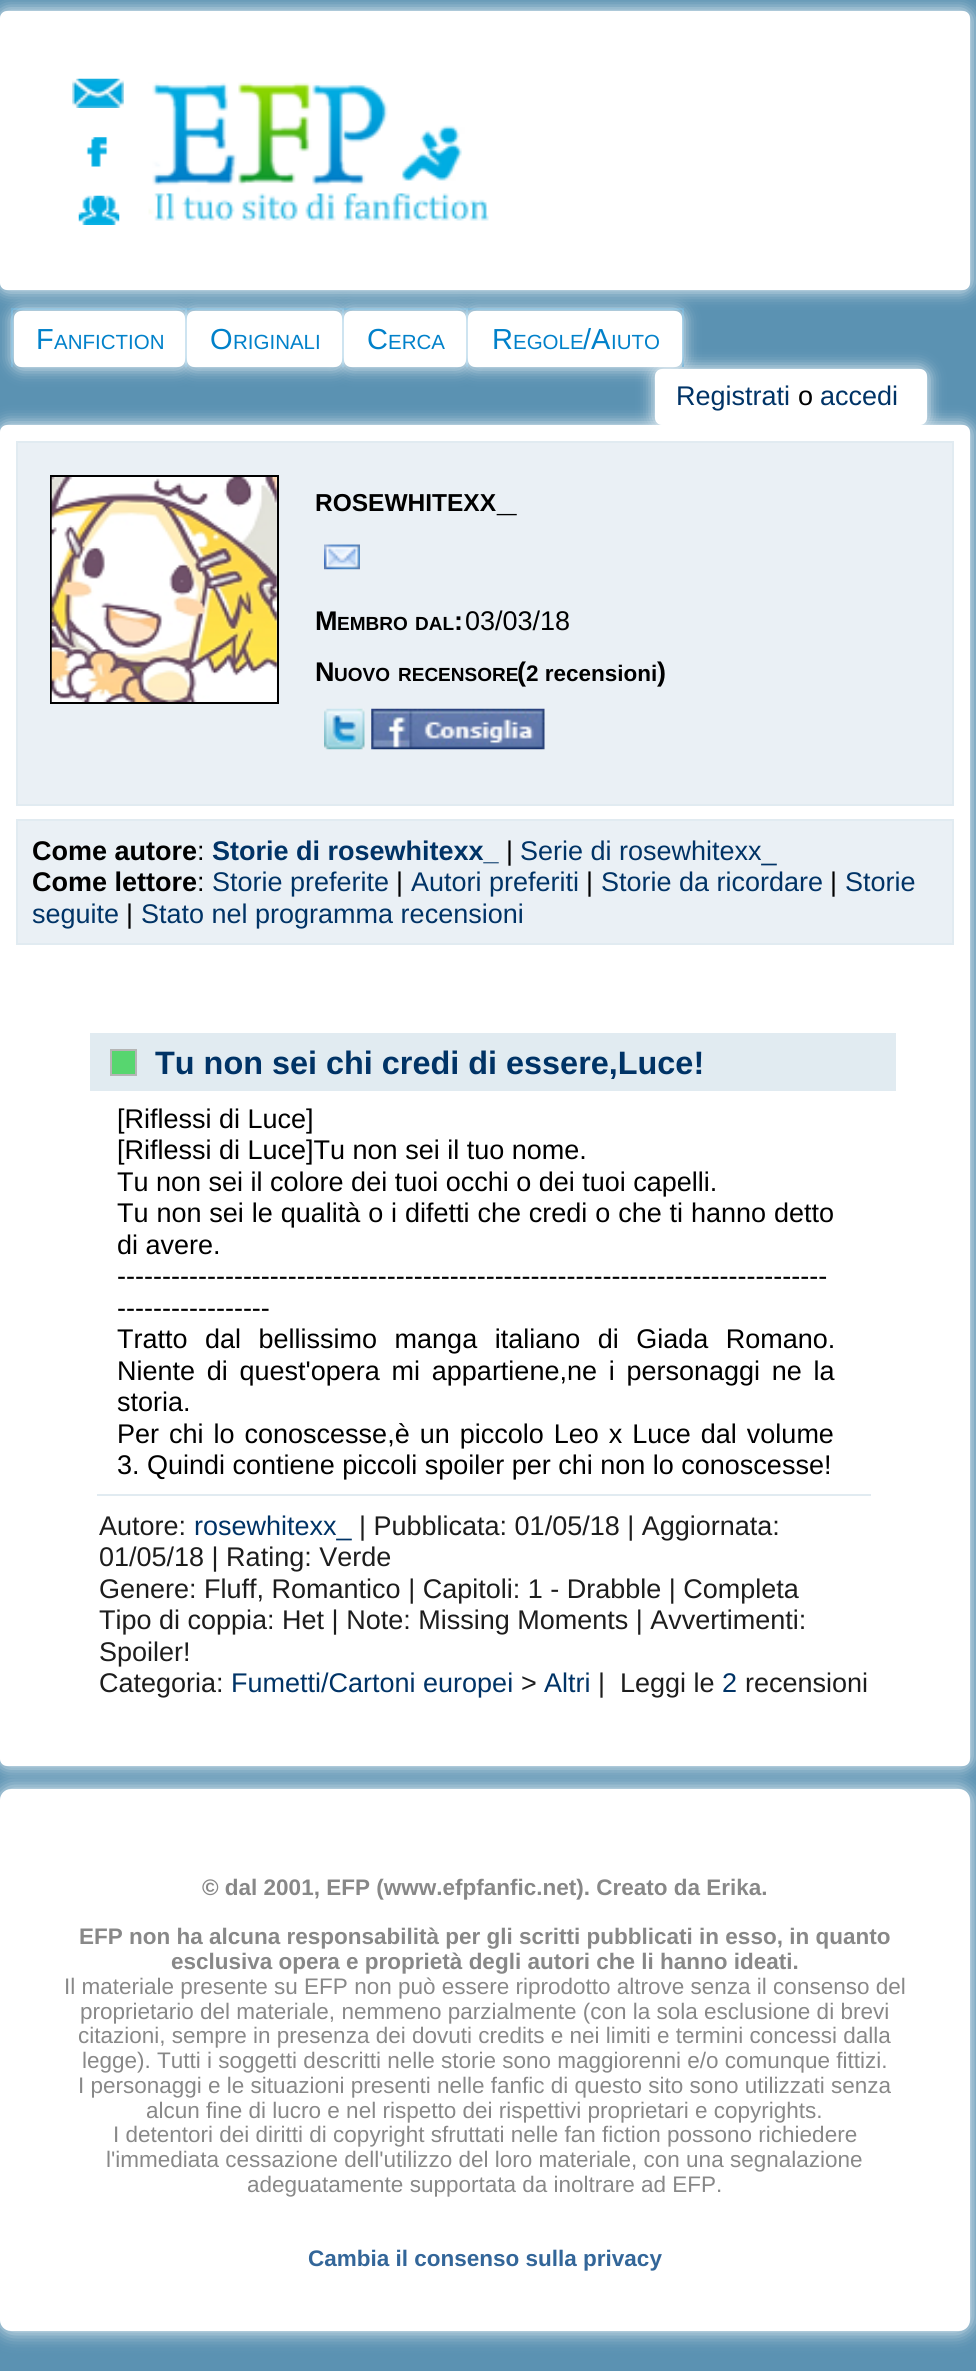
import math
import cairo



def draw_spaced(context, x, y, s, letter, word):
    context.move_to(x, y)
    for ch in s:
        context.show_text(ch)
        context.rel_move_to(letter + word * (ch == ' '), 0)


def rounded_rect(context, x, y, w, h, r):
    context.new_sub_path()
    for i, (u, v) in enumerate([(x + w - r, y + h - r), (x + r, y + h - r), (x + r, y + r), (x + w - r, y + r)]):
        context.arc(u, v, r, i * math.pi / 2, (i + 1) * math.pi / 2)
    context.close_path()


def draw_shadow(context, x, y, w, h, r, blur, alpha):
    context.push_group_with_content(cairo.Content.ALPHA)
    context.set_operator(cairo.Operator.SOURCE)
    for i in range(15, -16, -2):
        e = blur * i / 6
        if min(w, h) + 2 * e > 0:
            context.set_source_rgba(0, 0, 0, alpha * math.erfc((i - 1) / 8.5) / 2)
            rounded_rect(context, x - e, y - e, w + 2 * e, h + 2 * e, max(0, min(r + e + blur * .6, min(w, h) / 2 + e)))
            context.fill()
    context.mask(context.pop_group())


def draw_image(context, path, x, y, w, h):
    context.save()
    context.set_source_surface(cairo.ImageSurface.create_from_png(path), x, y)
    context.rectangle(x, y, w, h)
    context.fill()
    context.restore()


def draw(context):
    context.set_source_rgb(91 / 255, 146 / 255, 178 / 255)
    context.paint()
    context.set_source_rgb(1, 1, 1)
    draw_shadow(context, 0, 11, 970, 279, 7, 8, 1)
    context.set_source_rgb(1, 1, 1)
    rounded_rect(context, 0, 11, 970, 279, 7)
    context.fill()
    draw_image(context, "images/1.png", 72, 78, 52, 30)
    draw_image(context, "images/2.png", 86, 137, 22, 30)
    draw_image(context, "images/3.png", 78, 195, 42, 30)
    draw_image(context, "images/4.png", 148, 82, 341, 139)
    context.set_source_rgb(86 / 255, 162 / 255, 205 / 255)
    context.rectangle(11, 308, 176, 2)
    context.fill()
    context.rectangle(185, 308, 2, 59)
    context.fill()
    context.rectangle(11, 308, 2, 59)
    context.fill()
    context.set_source_rgb(1, 1, 1)
    draw_shadow(context, 14, 311, 171, 56, 7, 8, 1)
    context.set_source_rgb(1, 1, 1)
    rounded_rect(context, 14, 311, 171, 56, 7)
    context.fill()
    context.set_source_rgb(86 / 255, 162 / 255, 205 / 255)
    context.rectangle(187, 308, 157, 2)
    context.fill()
    context.rectangle(342, 308, 2, 59)
    context.fill()
    context.set_source_rgb(1, 1, 1)
    draw_shadow(context, 187, 311, 155, 56, 7, 8, 1)
    context.set_source_rgb(1, 1, 1)
    rounded_rect(context, 187, 311, 155, 56, 7)
    context.fill()
    context.set_source_rgb(86 / 255, 162 / 255, 205 / 255)
    context.rectangle(344, 308, 124, 2)
    context.fill()
    context.rectangle(466, 308, 2, 59)
    context.fill()
    context.set_source_rgb(1, 1, 1)
    draw_shadow(context, 344, 311, 122, 56, 7, 8, 1)
    context.set_source_rgb(1, 1, 1)
    rounded_rect(context, 344, 311, 122, 56, 7)
    context.fill()
    context.set_source_rgb(86 / 255, 162 / 255, 205 / 255)
    context.rectangle(468, 308, 216, 2)
    context.fill()
    context.set_source_rgb(1, 1, 1)
    draw_shadow(context, 0, 425, 970, 1341, 7, 8, 1)
    context.set_source_rgb(1, 1, 1)
    rounded_rect(context, 0, 425, 970, 1341, 7)
    context.fill()
    context.set_source_rgb(234 / 255, 240 / 255, 245 / 255)
    context.rectangle(17, 442, 936, 363)
    context.fill_preserve()
    context.set_source_rgb(225 / 255, 235 / 255, 241 / 255)
    context.stroke()
    context.set_source_rgb(1, 1, 1)
    draw_shadow(context, 655, 369, 272, 56, 7, 8, 1)
    context.set_source_rgb(86 / 255, 162 / 255, 205 / 255)
    context.rectangle(682, 308, 2, 59)
    context.fill()
    context.set_source_rgb(1, 1, 1)
    rounded_rect(context, 655, 369, 272, 56, 7)
    context.fill()
    context.set_source_rgb(1, 1, 1)
    draw_shadow(context, 468, 311, 214, 56, 7, 8, 1)
    context.set_source_rgb(1, 1, 1)
    rounded_rect(context, 468, 311, 214, 56, 7)
    context.fill()
    context.rectangle(51, 476, 227, 227)
    context.set_source_rgb(0, 0, 0)
    context.stroke()
    draw_image(context, "images/5.png", 51, 477, 226, 225)
    draw_image(context, "images/6.png", 324, 544, 36, 26)
    draw_image(context, "images/7.png", 324, 708, 41, 42)
    draw_image(context, "images/8.png", 371, 708, 174, 42)
    context.set_source_rgb(234 / 255, 240 / 255, 245 / 255)
    context.rectangle(17, 820, 936, 124)
    context.fill_preserve()
    context.set_source_rgb(225 / 255, 235 / 255, 241 / 255)
    context.stroke()
    context.rectangle(90, 1033, 806, 58)
    context.fill()
    context.set_source_rgb(87 / 255, 214 / 255, 111 / 255)
    context.rectangle(111, 1050, 25, 25)
    context.fill_preserve()
    context.set_source_rgb(181 / 255, 181 / 255, 181 / 255)
    context.stroke()
    context.set_source_rgb(225 / 255, 235 / 255, 241 / 255)
    context.rectangle(97, 1494, 774, 2)
    context.fill()
    context.set_source_rgb(1, 1, 1)
    draw_shadow(context, 0, 1789, 970, 542, 11, 9, 1)
    context.set_source_rgb(1, 1, 1)
    rounded_rect(context, 0, 1789, 970, 542, 11)
    context.fill()
    context.select_font_face("Liberation Sans")
    context.set_font_size(29)
    context.set_source_rgb(1 / 255, 129 / 255, 202 / 255)
    context.move_to(36, 349)
    context.show_text("F")
    context.set_font_size(20.5)
    context.move_to(54, 349)
    context.show_text("ANFICTION")
    context.set_font_size(29)
    context.move_to(210, 349)
    context.show_text("O")
    context.set_font_size(20.5)
    context.move_to(233, 349)
    context.show_text("RIGINALI")
    context.set_font_size(29)
    context.move_to(367, 349)
    context.show_text("C")
    context.set_font_size(20.5)
    context.move_to(388, 349)
    context.show_text("ERCA")
    context.set_font_size(29)
    context.move_to(492, 349)
    context.show_text("R")
    context.set_font_size(20.5)
    context.move_to(513, 349)
    context.show_text("EGOLE")
    context.set_font_size(29)
    context.move_to(583, 349)
    context.show_text("/A")
    context.set_font_size(20.5)
    context.move_to(611, 349)
    context.show_text("IUTO")
    context.set_font_size(27)
    context.set_source_rgb(0, 51 / 255, 102 / 255)
    context.move_to(676, 405)
    context.show_text("Registrati")
    context.set_source_rgb(0, 0, 0)
    context.move_to(798, 405)
    context.show_text("o")
    context.set_source_rgb(0, 51 / 255, 102 / 255)
    context.move_to(820, 405)
    context.show_text("accedi")
    context.select_font_face("Liberation Sans", cairo.FontSlant.NORMAL, cairo.FontWeight.BOLD)
    context.set_font_size(24.5)
    context.set_source_rgb(0, 0, 0)
    context.move_to(315, 511)
    context.show_text("ROSEWHITEXX")
    context.set_font_size(35)
    context.move_to(497, 511)
    context.show_text("_")
    context.set_font_size(27)
    context.move_to(315, 630)
    context.show_text("M")
    context.set_font_size(19)
    context.move_to(337, 630)
    context.show_text("EMBRO")
    context.move_to(415, 630)
    context.show_text("DAL")
    context.set_font_size(27)
    context.move_to(454, 630)
    context.show_text(":")
    context.select_font_face("Liberation Sans")
    context.move_to(465, 630)
    context.show_text("03/03/18")
    context.select_font_face("Liberation Sans", cairo.FontSlant.NORMAL, cairo.FontWeight.BOLD)
    context.move_to(315, 681)
    context.show_text("N")
    context.set_font_size(19)
    context.move_to(334, 681)
    context.show_text("UOVO")
    context.move_to(398, 681)
    context.show_text("RECENSORE")
    context.set_font_size(27)
    context.move_to(517, 681)
    context.show_text("(")
    context.set_font_size(22.5)
    context.move_to(526, 681)
    context.show_text("2 recensioni")
    context.set_font_size(27)
    context.move_to(657, 681)
    context.show_text(")")
    context.move_to(32, 860)
    context.show_text("Come autore")
    context.select_font_face("Liberation Sans")
    context.move_to(197, 860)
    context.show_text(":")
    context.select_font_face("Liberation Sans", cairo.FontSlant.NORMAL, cairo.FontWeight.BOLD)
    context.set_source_rgb(0, 51 / 255, 102 / 255)
    context.move_to(212, 860)
    context.show_text("Storie di rosewhitexx_")
    context.select_font_face("Liberation Sans")
    context.set_source_rgb(0, 0, 0)
    context.move_to(506, 860)
    context.show_text("|")
    context.set_source_rgb(0, 51 / 255, 102 / 255)
    context.move_to(520, 860)
    context.show_text("Serie di rosewhitexx_")
    context.select_font_face("Liberation Sans", cairo.FontSlant.NORMAL, cairo.FontWeight.BOLD)
    context.set_source_rgb(0, 0, 0)
    context.move_to(32, 891)
    context.show_text("Come lettore")
    context.select_font_face("Liberation Sans")
    context.move_to(197, 891)
    context.show_text(":")
    context.set_source_rgb(0, 51 / 255, 102 / 255)
    context.move_to(212, 891)
    context.show_text("Storie preferite")
    context.set_source_rgb(0, 0, 0)
    context.move_to(396, 891)
    context.show_text("|")
    context.set_source_rgb(0, 51 / 255, 102 / 255)
    context.move_to(411, 891)
    context.show_text("Autori preferiti")
    context.set_source_rgb(0, 0, 0)
    context.move_to(586, 891)
    context.show_text("|")
    context.set_source_rgb(0, 51 / 255, 102 / 255)
    context.move_to(601, 891)
    context.show_text("Storie da ricordare")
    context.set_source_rgb(0, 0, 0)
    context.move_to(830, 891)
    context.show_text("|")
    context.set_source_rgb(0, 51 / 255, 102 / 255)
    context.move_to(845, 891)
    context.show_text("Storie")
    context.move_to(32, 923)
    context.show_text("seguite")
    context.set_source_rgb(0, 0, 0)
    context.move_to(126, 923)
    context.show_text("|")
    context.set_source_rgb(0, 51 / 255, 102 / 255)
    context.move_to(141, 923)
    context.show_text("Stato nel programma recensioni")
    context.select_font_face("Liberation Sans", cairo.FontSlant.NORMAL, cairo.FontWeight.BOLD)
    context.set_font_size(32.4)
    context.move_to(155, 1074)
    context.show_text("Tu non sei chi credi di essere,Luce!")
    context.select_font_face("Liberation Sans")
    context.set_font_size(27)
    context.set_source_rgb(0, 0, 0)
    context.move_to(117, 1128)
    context.show_text("[Riflessi di Luce]")
    context.move_to(117, 1159)
    context.show_text("[Riflessi di Luce]Tu non sei il tuo nome.")
    context.move_to(117, 1191)
    context.show_text("Tu non sei il colore dei tuoi occhi o dei tuoi capelli.")
    draw_spaced(context, 117, 1222, "Tu non sei le qualità o i difetti che credi o che ti hanno detto", 0, 0.4)
    context.move_to(117, 1254)
    context.show_text("di avere.")
    context.move_to(117, 1285)
    context.show_text("-------------------------------------------------------------------------------")
    context.move_to(117, 1317)
    context.show_text("-----------------")
    draw_spaced(context, 117, 1348, "Tratto dal bellissimo manga italiano di Giada Romano.", 0, 10)
    draw_spaced(context, 117, 1380, "Niente di quest'opera mi appartiene,ne i personaggi ne la", 0, 4.25)
    context.move_to(117, 1411)
    context.show_text("storia.")
    draw_spaced(context, 117, 1443, "Per chi lo conoscesse,è un piccolo Leo x Luce dal volume", 0, 2.5)
    context.move_to(117, 1474)
    context.show_text("3. Quindi contiene piccoli spoiler per chi non lo conoscesse!")
    context.set_source_rgb(29 / 255, 29 / 255, 29 / 255)
    context.move_to(99, 1535)
    context.show_text("Autore:")
    context.set_source_rgb(0, 51 / 255, 102 / 255)
    context.move_to(194, 1535)
    context.show_text("rosewhitexx_")
    context.set_source_rgb(29 / 255, 29 / 255, 29 / 255)
    context.move_to(359, 1535)
    context.show_text("| Pubblicata: 01/05/18 | Aggiornata:")
    context.move_to(99, 1566)
    context.show_text("01/05/18 | Rating: Verde")
    context.move_to(99, 1598)
    context.show_text("Genere: Fluff, Romantico | Capitoli: 1 - Drabble | Completa")
    context.move_to(99, 1629)
    context.show_text("Tipo di coppia: Het | Note: Missing Moments | Avvertimenti:")
    context.move_to(99, 1661)
    context.show_text("Spoiler!")
    context.move_to(99, 1692)
    context.show_text("Categoria:")
    context.set_source_rgb(0, 51 / 255, 102 / 255)
    context.move_to(231, 1692)
    context.show_text("Fumetti/Cartoni europei")
    context.set_source_rgb(29 / 255, 29 / 255, 29 / 255)
    context.move_to(521, 1692)
    context.show_text(">")
    context.set_source_rgb(0, 51 / 255, 102 / 255)
    context.move_to(544, 1692)
    context.show_text("Altri")
    context.set_source_rgb(29 / 255, 29 / 255, 29 / 255)
    context.move_to(598, 1692)
    context.show_text("|  Leggi le")
    context.set_source_rgb(0, 51 / 255, 102 / 255)
    context.move_to(722, 1692)
    context.show_text("2")
    context.set_source_rgb(29 / 255, 29 / 255, 29 / 255)
    context.move_to(745, 1692)
    context.show_text("recensioni")
    context.select_font_face("Liberation Sans", cairo.FontSlant.NORMAL, cairo.FontWeight.BOLD)
    context.set_font_size(22.5)
    context.set_source_rgb(136 / 255, 136 / 255, 136 / 255)
    context.move_to(202, 1895)
    context.show_text("© dal 2001, EFP (www.efpfanfic.net). Creato da Erika.")
    context.move_to(79, 1944)
    context.show_text("EFP non ha alcuna responsabilità per gli scritti pubblicati in esso, in quanto")
    context.move_to(171, 1969)
    context.show_text("esclusiva opera e proprietà degli autori che li hanno ideati.")
    context.select_font_face("Liberation Sans")
    context.move_to(64, 1994)
    context.show_text("Il materiale presente su EFP non può essere riprodotto altrove senza il consenso del")
    context.move_to(80, 2019)
    context.show_text("proprietario del materiale, nemmeno parzialmente (con la sola esclusione di brevi")
    context.move_to(78, 2043)
    context.show_text("citazioni, sempre in presenza dei dovuti credits e nei limiti e termini concessi dalla")
    context.move_to(82, 2068)
    context.show_text("legge). Tutti i soggetti descritti nelle storie sono maggiorenni e/o comunque fittizi.")
    context.move_to(78, 2093)
    context.show_text("I personaggi e le situazioni presenti nelle fanfic di questo sito sono utilizzati senza")
    context.move_to(146, 2118)
    context.show_text("alcun fine di lucro e nel rispetto dei rispettivi proprietari e copyrights.")
    context.move_to(113, 2142)
    context.show_text("I detentori dei diritti di copyright sfruttati nelle fan fiction possono richiedere")
    context.move_to(106, 2167)
    context.show_text("l'immediata cessazione dell'utilizzo del loro materiale, con una segnalazione")
    context.move_to(247, 2192)
    context.show_text("adeguatamente supportata da inoltrare ad EFP.")
    context.select_font_face("Liberation Sans", cairo.FontSlant.NORMAL, cairo.FontWeight.BOLD)
    context.set_source_rgb(51 / 255, 102 / 255, 153 / 255)
    context.move_to(308, 2266)
    context.show_text("Cambia il consenso sulla privacy")


surface = cairo.ImageSurface(cairo.Format.RGB24, 976, 2371)
context = cairo.Context(surface)
options = cairo.FontOptions()
options.set_hint_metrics(cairo.HintMetrics.OFF)
options.set_hint_style(cairo.HintStyle.NONE)
context.set_font_options(options)
context.set_miter_limit(4)
draw(context)
surface.write_to_png("out.png")
